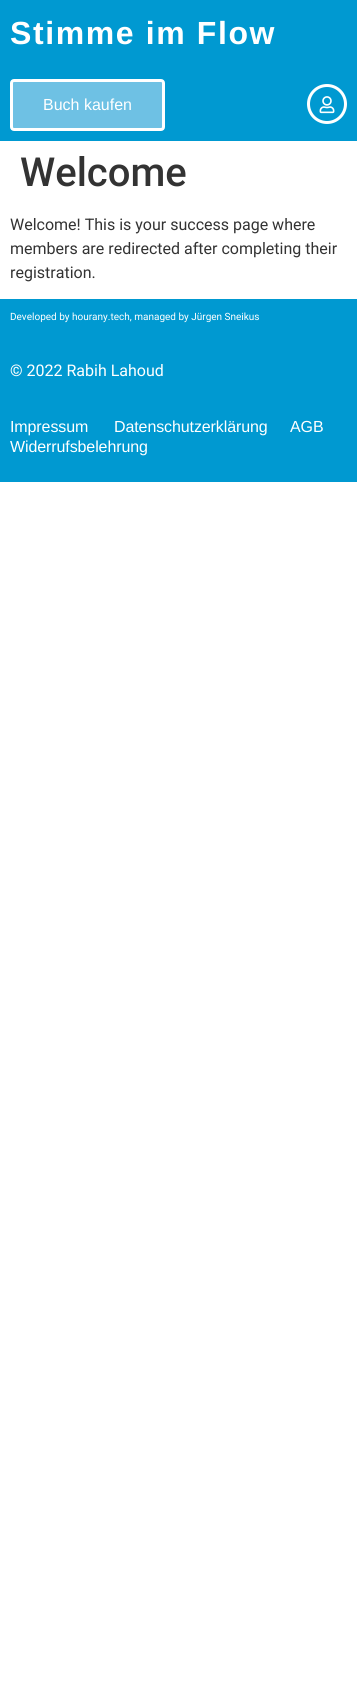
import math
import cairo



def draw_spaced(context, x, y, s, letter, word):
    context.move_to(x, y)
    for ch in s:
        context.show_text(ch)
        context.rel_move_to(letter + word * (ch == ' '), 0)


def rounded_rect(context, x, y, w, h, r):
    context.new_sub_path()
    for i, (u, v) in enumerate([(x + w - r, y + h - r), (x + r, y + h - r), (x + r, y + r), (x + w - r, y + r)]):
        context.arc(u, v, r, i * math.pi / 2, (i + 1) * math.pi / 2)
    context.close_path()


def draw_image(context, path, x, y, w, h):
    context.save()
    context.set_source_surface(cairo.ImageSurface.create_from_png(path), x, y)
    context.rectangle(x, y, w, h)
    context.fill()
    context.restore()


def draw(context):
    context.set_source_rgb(1, 1, 1)
    context.paint()
    context.set_source_rgb(0, 153 / 255, 209 / 255)
    context.rectangle(0, 0, 357, 141)
    context.fill()
    context.set_source_rgb(110 / 255, 193 / 255, 228 / 255)
    rounded_rect(context, 11.5, 80.5, 152, 49, 2.5)
    context.fill_preserve()
    context.set_source_rgb(1, 1, 1)
    context.set_line_width(3)
    context.stroke()
    context.arc(327, 104, 18.5, 0, 2 * math.pi)
    context.set_source_rgb(254 / 255, 1, 1)
    context.stroke()
    draw_image(context, "images/1.png", 319, 96, 16, 18)
    context.set_source_rgb(0, 153 / 255, 209 / 255)
    context.rectangle(0, 299, 357, 183)
    context.fill()
    context.select_font_face("Liberation Sans", cairo.FontSlant.NORMAL, cairo.FontWeight.BOLD)
    context.set_font_size(32)
    context.set_source_rgb(1, 1, 1)
    draw_spaced(context, 10, 44, "Stimme im Flow", 1.6, 0)
    context.select_font_face("Liberation Sans")
    context.set_font_size(16)
    context.move_to(43, 110)
    context.show_text("Buch kaufen")
    context.select_font_face("Roboto Medium")
    context.set_font_size(40)
    context.set_source_rgb(51 / 255, 51 / 255, 51 / 255)
    context.move_to(20, 186)
    context.show_text("Welcome")
    context.select_font_face("Roboto")
    context.set_font_size(16)
    context.move_to(10, 230)
    context.show_text("Welcome! This is your success page where")
    context.move_to(10, 254)
    context.show_text("members are redirected after completing their")
    context.move_to(10, 278)
    context.show_text("registration.")
    context.set_font_size(10)
    context.set_source_rgb(1, 1, 1)
    context.move_to(10, 320)
    context.show_text("Developed by hourany.tech, managed by Jürgen Sneikus")
    context.set_font_size(16)
    context.move_to(10, 376)
    context.show_text("© 2022 Rabih Lahoud")
    context.select_font_face("Liberation Sans")
    draw_spaced(context, 10, 432, "Impressum", -0.1, 0)
    draw_spaced(context, 114, 432, "Datenschutzerklärung", -0.1, 0)
    draw_spaced(context, 290, 432, "AGB", -0.1, 0)
    draw_spaced(context, 10, 452, "Widerrufsbelehrung", -0.1, 0)


surface = cairo.ImageSurface(cairo.Format.RGB24, 357, 1703)
context = cairo.Context(surface)
options = cairo.FontOptions()
options.set_hint_metrics(cairo.HintMetrics.OFF)
options.set_hint_style(cairo.HintStyle.NONE)
context.set_font_options(options)
context.set_miter_limit(4)
draw(context)
surface.write_to_png("out.png")
